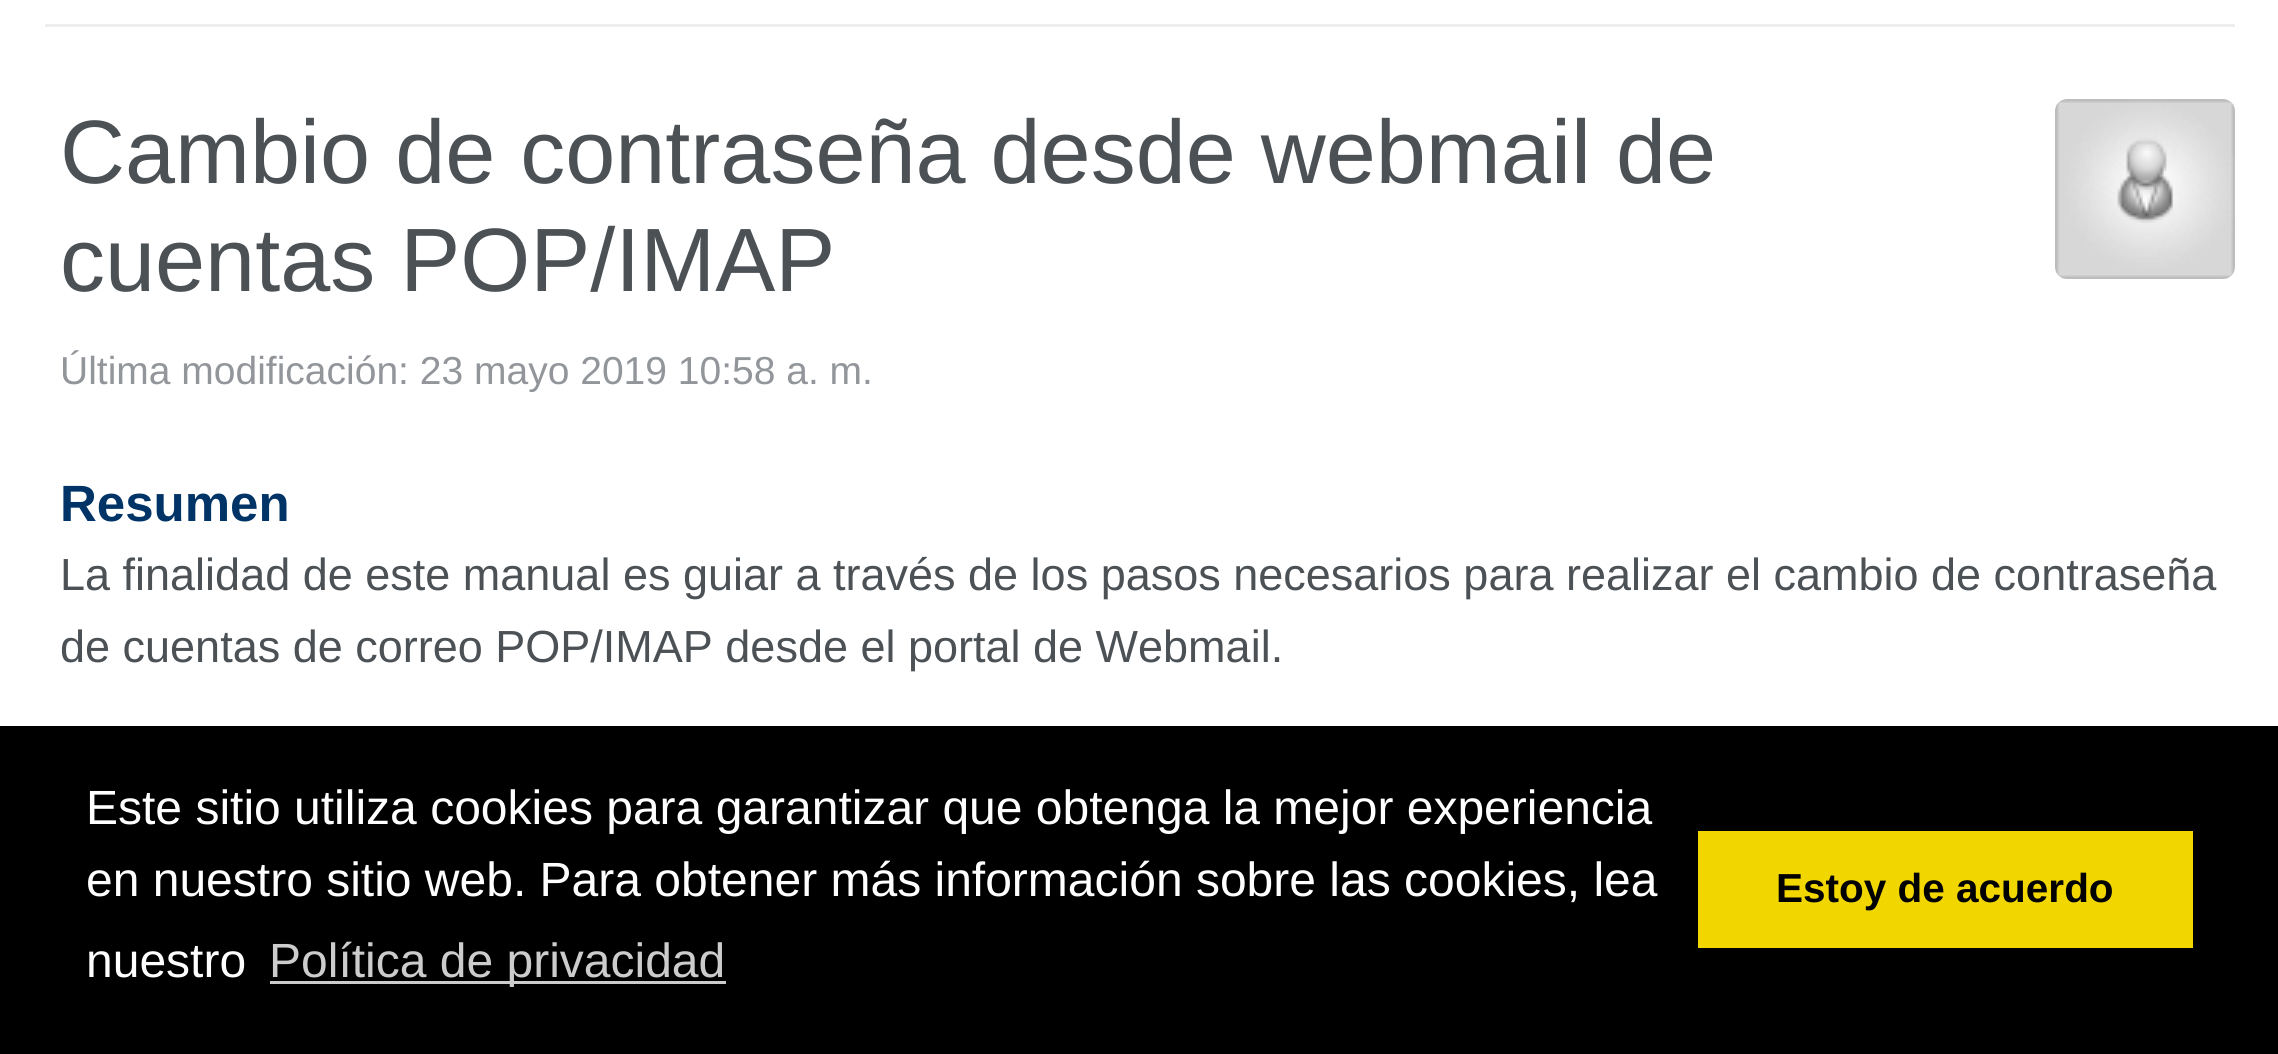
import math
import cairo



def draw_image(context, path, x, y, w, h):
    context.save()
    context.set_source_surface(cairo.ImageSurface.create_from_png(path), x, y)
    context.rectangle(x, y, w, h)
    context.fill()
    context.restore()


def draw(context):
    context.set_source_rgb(1, 1, 1)
    context.paint()
    context.set_source_rgb(238 / 255, 238 / 255, 238 / 255)
    context.rectangle(45, 24, 2190, 3)
    context.fill()
    draw_image(context, "images/1.png", 2055, 99, 180, 180)
    context.set_source_rgb(0, 0, 0)
    context.rectangle(0, 726, 2278, 328)
    context.fill()
    context.set_source_rgb(204 / 255, 204 / 255, 204 / 255)
    context.rectangle(270, 981, 456, 3)
    context.fill()
    context.set_source_rgb(241 / 255, 214 / 255, 0)
    context.rectangle(1698, 831, 495, 117)
    context.fill()
    context.select_font_face("Liberation Sans")
    context.set_font_size(90)
    context.set_source_rgb(76 / 255, 81 / 255, 86 / 255)
    context.move_to(60, 183)
    context.show_text("Cambio de contraseña desde webmail de")
    context.move_to(60, 291)
    context.show_text("cuentas POP/IMAP")
    context.set_font_size(39)
    context.set_source_rgb(146 / 255, 150 / 255, 155 / 255)
    context.move_to(60, 384)
    context.show_text("Última modificación: 23 mayo 2019 10:58 a. m.")
    context.select_font_face("Liberation Sans", cairo.FontSlant.NORMAL, cairo.FontWeight.BOLD)
    context.set_font_size(51)
    context.set_source_rgb(0, 51 / 255, 102 / 255)
    context.move_to(60, 521)
    context.show_text("Resumen")
    context.select_font_face("Liberation Sans")
    context.set_font_size(45)
    context.set_source_rgb(76 / 255, 81 / 255, 86 / 255)
    context.move_to(60, 590)
    context.show_text("La finalidad de este manual es guiar a través de los pasos necesarios para realizar el cambio de contraseña")
    context.move_to(60, 662)
    context.show_text("de cuentas de correo POP/IMAP desde el portal de Webmail.")
    context.set_font_size(48)
    context.set_source_rgb(1, 1, 1)
    context.move_to(86, 824)
    context.show_text("Este sitio utiliza cookies para garantizar que obtenga la mejor experiencia")
    context.move_to(86, 896)
    context.show_text("en nuestro sitio web. Para obtener más información sobre las cookies, lea")
    context.move_to(86, 977)
    context.show_text("nuestro")
    context.set_source_rgb(204 / 255, 204 / 255, 204 / 255)
    context.move_to(269, 977)
    context.show_text("Política de privacidad")
    context.select_font_face("Liberation Sans", cairo.FontSlant.NORMAL, cairo.FontWeight.BOLD)
    context.set_font_size(40.5)
    context.set_source_rgb(0, 0, 0)
    context.move_to(1776, 902)
    context.show_text("Estoy de acuerdo")


surface = cairo.ImageSurface(cairo.Format.RGB24, 2278, 1054)
context = cairo.Context(surface)
options = cairo.FontOptions()
options.set_hint_metrics(cairo.HintMetrics.OFF)
options.set_hint_style(cairo.HintStyle.NONE)
context.set_font_options(options)
context.set_miter_limit(4)
draw(context)
surface.write_to_png("out.png")
